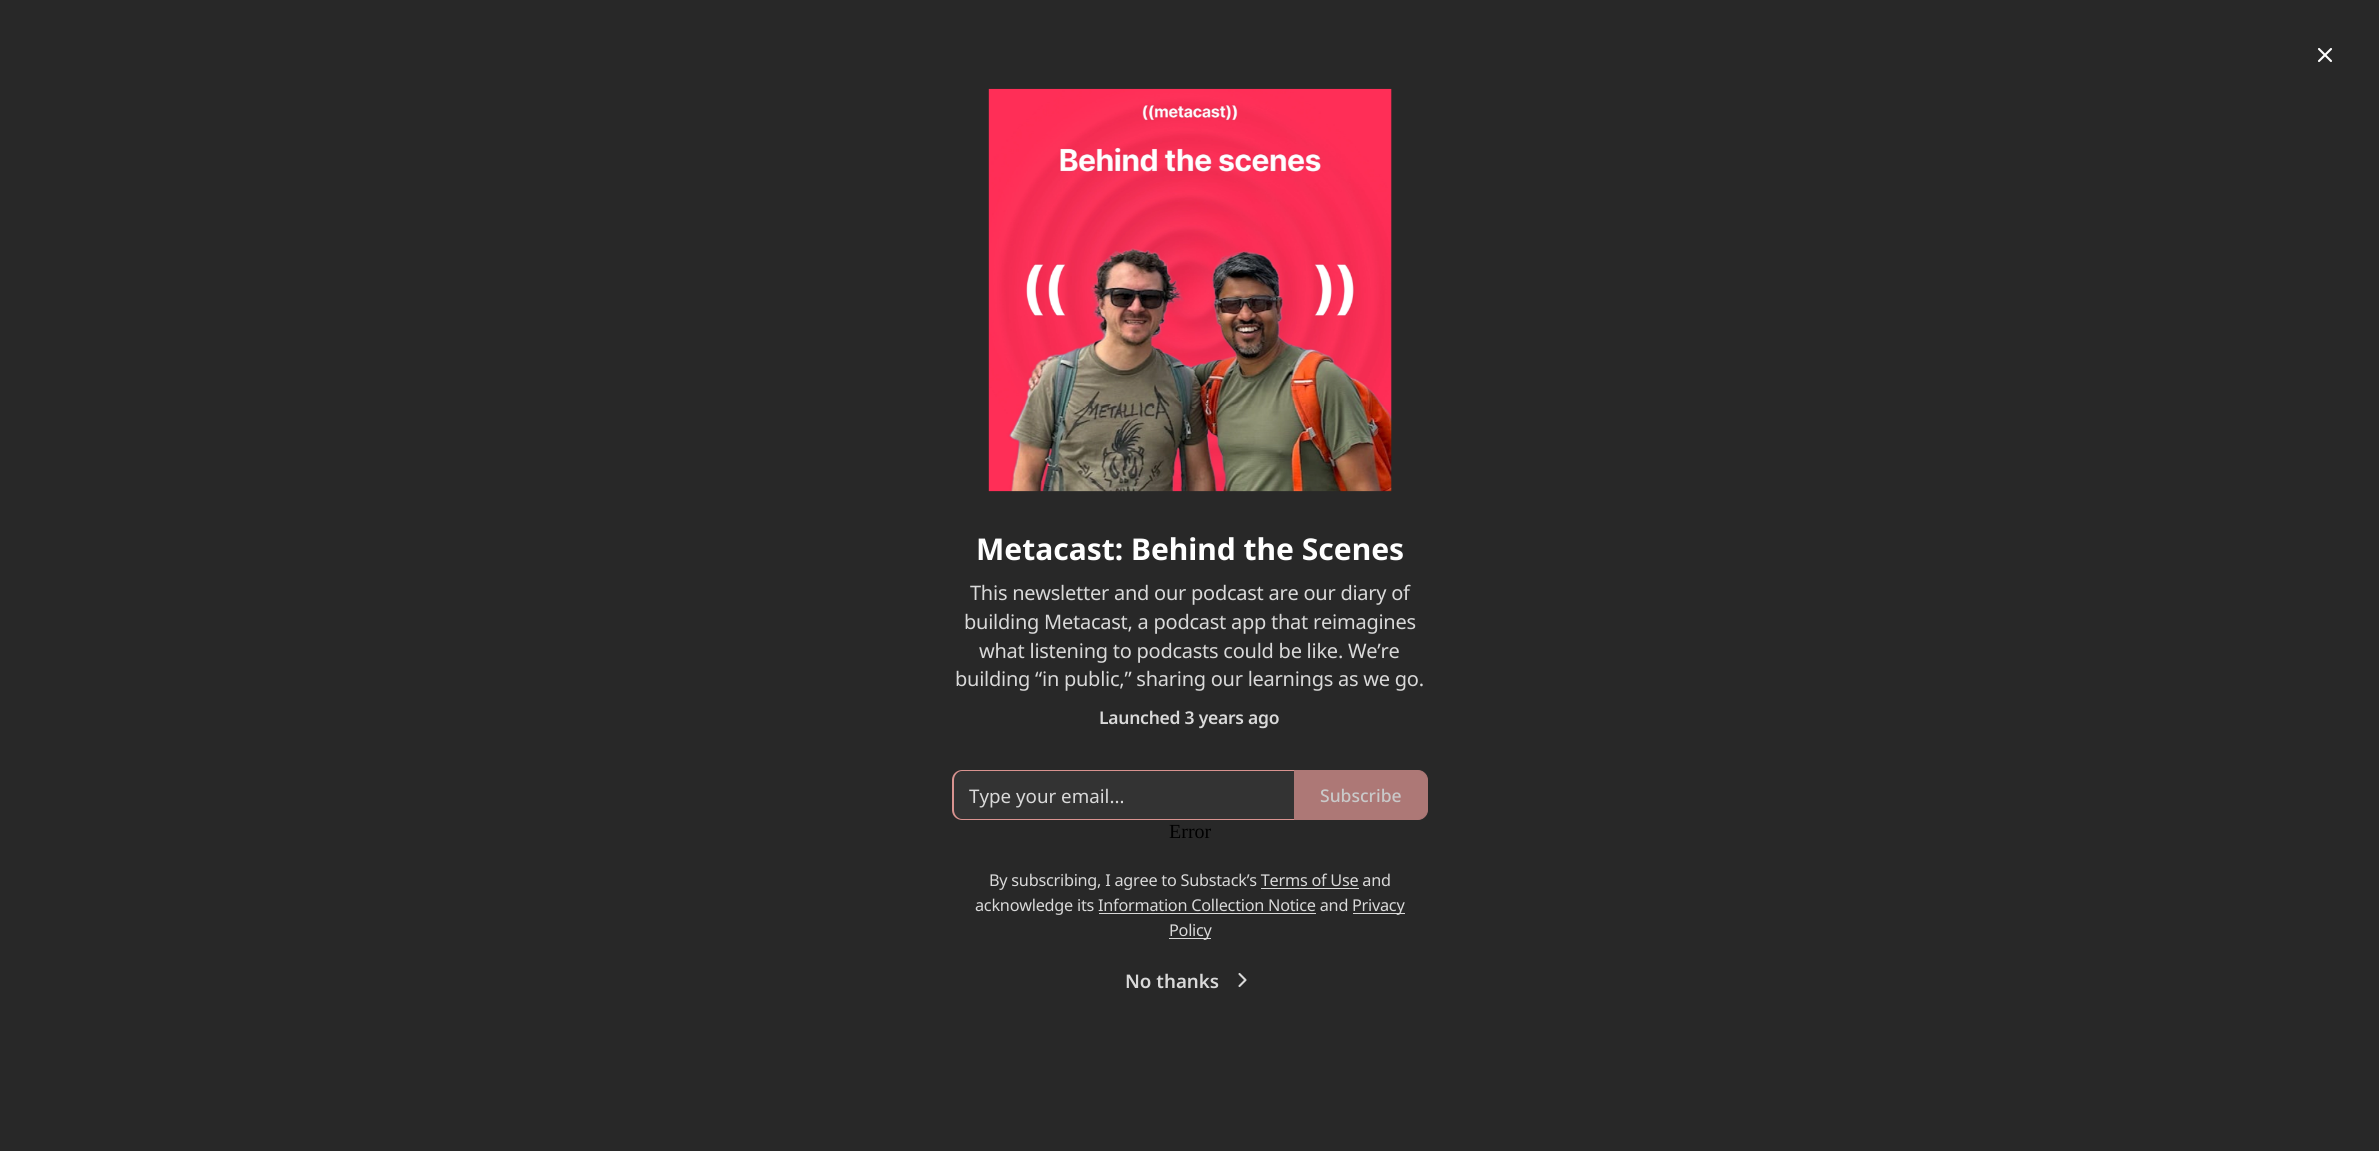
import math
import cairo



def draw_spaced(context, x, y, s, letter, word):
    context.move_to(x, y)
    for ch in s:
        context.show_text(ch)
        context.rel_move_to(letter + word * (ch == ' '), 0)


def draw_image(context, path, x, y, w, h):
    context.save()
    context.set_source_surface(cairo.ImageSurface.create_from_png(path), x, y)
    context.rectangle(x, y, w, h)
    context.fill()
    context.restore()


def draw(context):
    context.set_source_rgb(40 / 255, 40 / 255, 40 / 255)
    context.paint()
    context.new_path()
    context.move_to(2331, 49)
    context.line_to(2319, 61)
    context.move_to(2319, 49)
    context.line_to(2331, 61)
    context.set_source_rgb(1, 1, 1)
    context.set_line_width(2.1)
    context.set_line_cap(cairo.LineCap.ROUND)
    context.set_line_join(cairo.LineJoin.ROUND)
    context.stroke()
    draw_image(context, "images/1.png", 988, 88, 404, 404)
    context.set_source_rgb(51 / 255, 51 / 255, 51 / 255)
    context.new_path()
    context.move_to(963, 771)
    context.line_to(1294, 771)
    context.line_to(1294, 819)
    context.line_to(963, 819)
    context.curve_to(958, 819, 954, 815, 954, 810)
    context.line_to(954, 780)
    context.curve_to(954, 775, 958, 771, 963, 771)
    context.close_path()
    context.fill()
    context.set_source_rgb(217 / 255, 147 / 255, 144 / 255)
    context.set_fill_rule(cairo.FillRule.EVEN_ODD)
    context.new_path()
    context.move_to(962, 770)
    context.line_to(1294, 770)
    context.line_to(1294, 820)
    context.line_to(962, 820)
    context.curve_to(957, 820, 952, 816, 952, 810)
    context.line_to(952, 780)
    context.curve_to(952, 774, 957, 770, 962, 770)
    context.close_path()
    context.move_to(962, 771)
    context.line_to(1294, 771)
    context.line_to(1294, 819)
    context.line_to(962, 819)
    context.curve_to(958, 819, 954, 815, 954, 810)
    context.line_to(954, 780)
    context.curve_to(954, 775, 958, 771, 962, 771)
    context.close_path()
    context.fill()
    context.set_source_rgb(173 / 255, 120 / 255, 118 / 255)
    context.new_path()
    context.move_to(1294.5, 770.5)
    context.line_to(1418, 770.5)
    context.curve_to(1423, 770.5, 1427.5, 775, 1427.5, 780)
    context.line_to(1427.5, 810)
    context.curve_to(1427.5, 815, 1423, 819.5, 1418, 819.5)
    context.line_to(1294.5, 819.5)
    context.close_path()
    context.fill_preserve()
    context.set_line_width(1)
    context.set_line_cap(cairo.LineCap.BUTT)
    context.set_line_join(cairo.LineJoin.MITER)
    context.stroke()
    context.set_source_rgb(217 / 255, 217 / 255, 217 / 255)
    context.rectangle(1261, 888, 98, 1)
    context.fill()
    context.rectangle(1353, 913, 52, 1)
    context.fill()
    context.rectangle(1099, 913, 217, 1)
    context.fill()
    context.rectangle(1169, 938, 42, 1)
    context.fill()
    context.new_path()
    context.move_to(1239.5, 986)
    context.line_to(1245.5, 980)
    context.line_to(1239.5, 974)
    context.set_line_width(2.1)
    context.set_line_cap(cairo.LineCap.ROUND)
    context.set_line_join(cairo.LineJoin.ROUND)
    context.stroke()
    context.select_font_face("Noto Sans", cairo.FontSlant.NORMAL, cairo.FontWeight.BOLD)
    context.set_font_size(30)
    context.set_source_rgb(1, 1, 1)
    context.move_to(976, 560)
    context.show_text("Metacast: Behind the Scenes")
    context.select_font_face("Noto Sans")
    context.set_font_size(20)
    context.set_source_rgb(217 / 255, 217 / 255, 217 / 255)
    draw_spaced(context, 970, 600, "This newsletter and our podcast are our diary of", -0.25, 0)
    draw_spaced(context, 964, 629, "building Metacast, a podcast app that reimagines", -0.25, 0)
    draw_spaced(context, 979, 658, "what listening to podcasts could be like. We’re", -0.25, 0)
    draw_spaced(context, 955, 686, "building “in public,” sharing our learnings as we go.", -0.25, 0)
    context.select_font_face("Noto Sans SemiBold")
    context.set_font_size(17.5)
    draw_spaced(context, 1099, 724, "Launched 3 years ago", -0.25, 0)
    context.select_font_face("Noto Sans")
    context.set_font_size(18.75)
    context.move_to(969, 803)
    context.show_text("Type your email...")
    context.select_font_face("Noto Sans Medium")
    context.set_font_size(17.5)
    context.set_source_rgb(201 / 255, 201 / 255, 201 / 255)
    context.move_to(1320, 802)
    context.show_text("Subscribe")
    context.select_font_face("Liberation Serif")
    context.set_font_size(20)
    context.set_source_rgb(0, 0, 0)
    context.move_to(1169, 838)
    context.show_text("Error")
    context.select_font_face("Noto Sans")
    context.set_font_size(16.25)
    context.set_source_rgb(217 / 255, 217 / 255, 217 / 255)
    draw_spaced(context, 989, 886, "By subscribing, I agree to Substack’s Terms of Use and", -0.25, 0)
    draw_spaced(context, 975, 911, "acknowledge its Information Collection Notice and", -0.25, 0)
    draw_spaced(context, 1352, 911, "Privacy", -0.25, 0)
    draw_spaced(context, 1169, 936, "Policy", -0.25, 0)
    context.select_font_face("Noto Sans SemiBold")
    context.set_font_size(18.75)
    context.move_to(1125, 988)
    context.show_text("No thanks")


surface = cairo.ImageSurface(cairo.Format.RGB24, 2379, 1151)
context = cairo.Context(surface)
options = cairo.FontOptions()
options.set_hint_metrics(cairo.HintMetrics.OFF)
options.set_hint_style(cairo.HintStyle.NONE)
context.set_font_options(options)
context.set_miter_limit(4)
draw(context)
surface.write_to_png("out.png")
